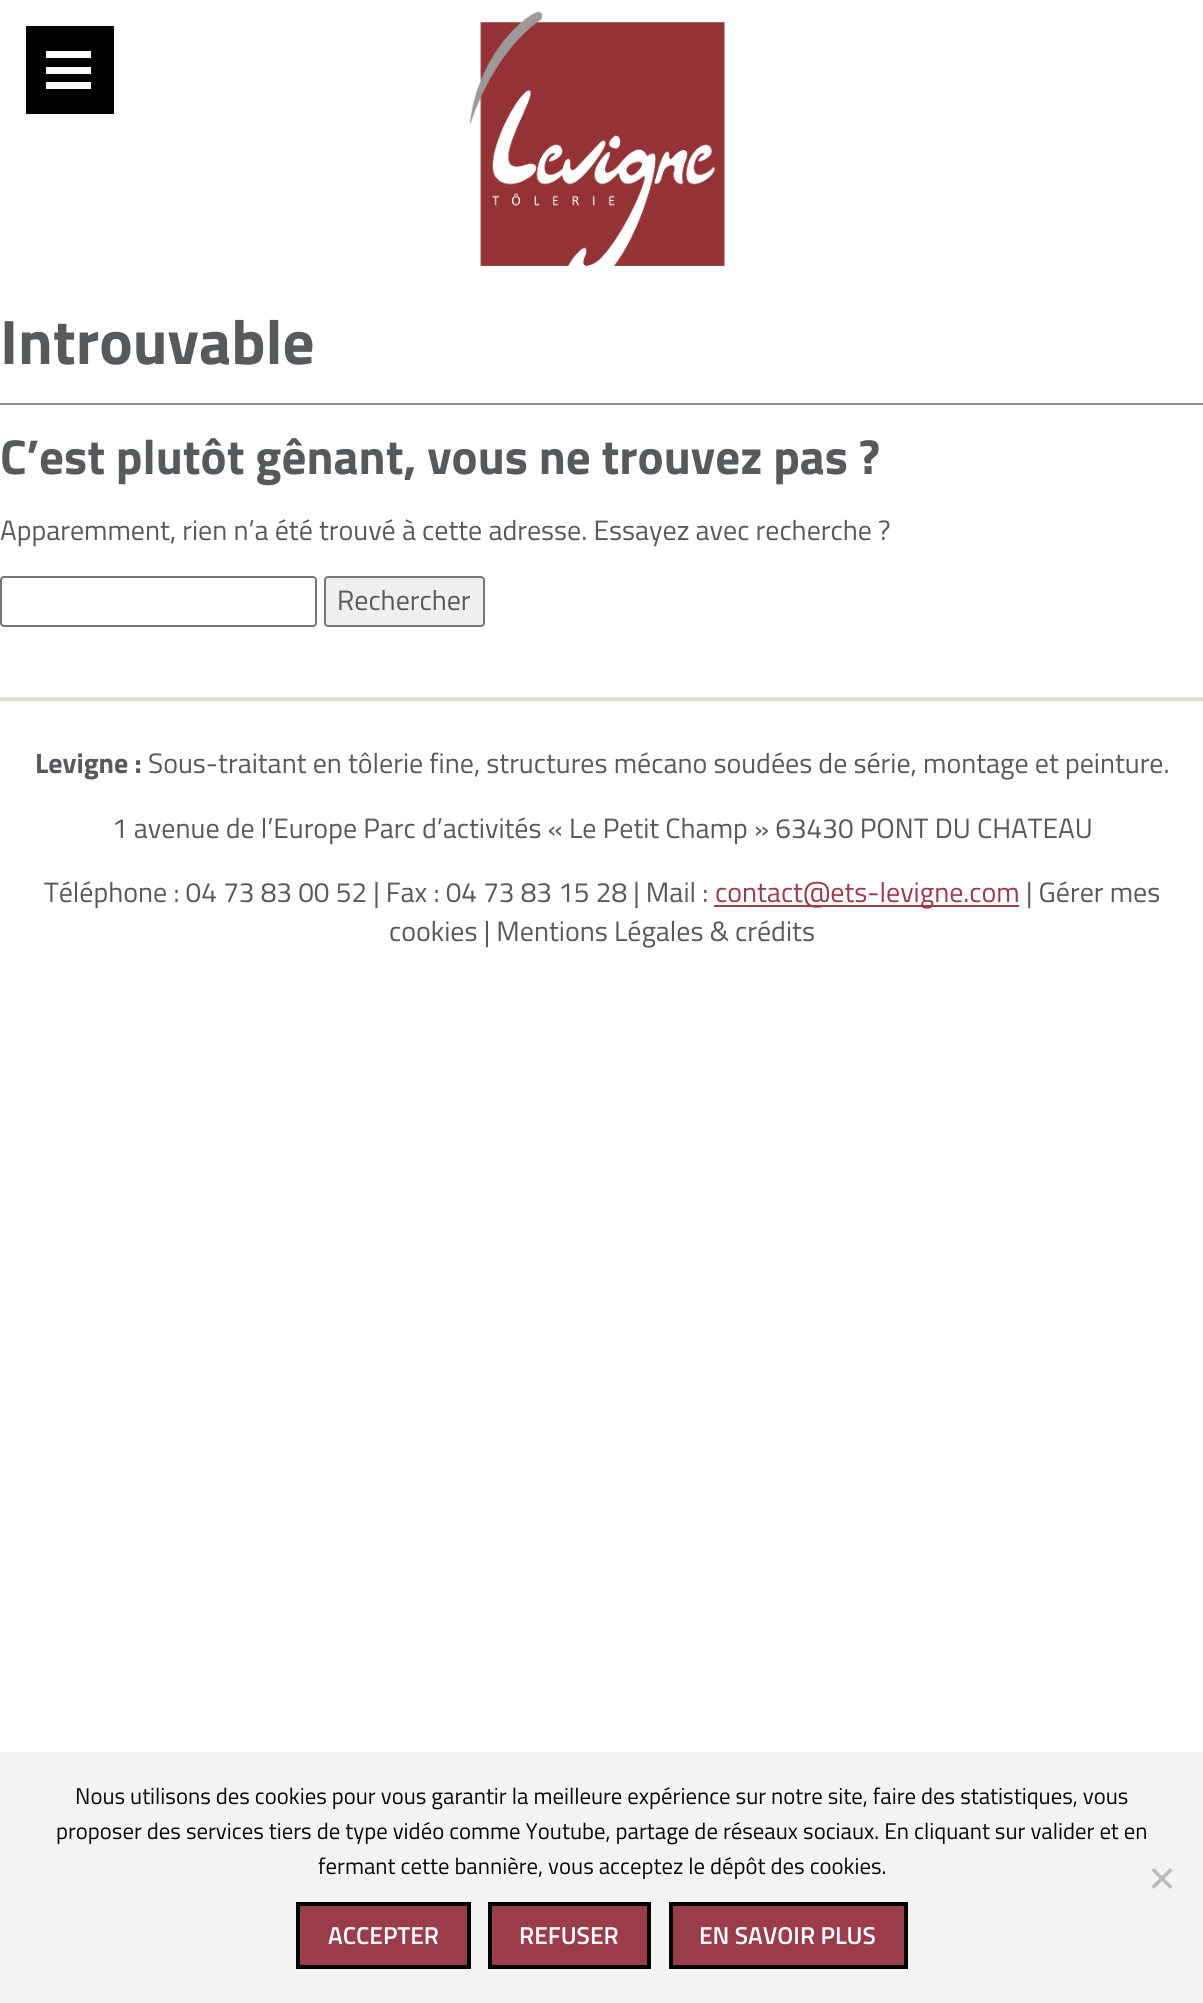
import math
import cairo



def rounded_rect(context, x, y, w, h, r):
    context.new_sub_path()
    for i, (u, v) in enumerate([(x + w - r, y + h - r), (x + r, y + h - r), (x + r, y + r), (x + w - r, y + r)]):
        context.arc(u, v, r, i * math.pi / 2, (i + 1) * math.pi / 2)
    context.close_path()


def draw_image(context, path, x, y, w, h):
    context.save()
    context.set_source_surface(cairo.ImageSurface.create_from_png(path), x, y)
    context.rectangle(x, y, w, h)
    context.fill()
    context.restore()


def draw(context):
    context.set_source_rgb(1, 1, 1)
    context.paint()
    context.set_source_rgb(0, 0, 0)
    context.rectangle(26, 26, 88, 88)
    context.fill()
    context.set_source_rgb(1, 1, 1)
    context.rectangle(46, 82, 45, 7)
    context.fill()
    context.rectangle(46, 67, 45, 7)
    context.fill()
    context.rectangle(46, 51, 45, 7)
    context.fill()
    draw_image(context, "images/1.png", 470, 11, 255, 255)
    context.set_source_rgb(142 / 255, 144 / 255, 143 / 255)
    context.rectangle(0, 403, 1203, 2)
    context.fill()
    rounded_rect(context, 1, 577, 315, 49, 3)
    context.set_source_rgb(118 / 255, 118 / 255, 118 / 255)
    context.stroke()
    context.set_source_rgb(239 / 255, 239 / 255, 239 / 255)
    rounded_rect(context, 325, 577, 159, 49, 3)
    context.fill_preserve()
    context.set_source_rgb(118 / 255, 118 / 255, 118 / 255)
    context.stroke()
    context.set_source_rgb(223 / 255, 223 / 255, 220 / 255)
    context.rectangle(0, 697, 1203, 4)
    context.fill()
    context.set_source_rgb(154 / 255, 60 / 255, 73 / 255)
    context.rectangle(714, 905, 305, 2)
    context.fill()
    context.set_source_rgb(243 / 255, 243 / 255, 242 / 255)
    context.rectangle(0, 1752, 1203, 251)
    context.fill()
    context.set_source_rgb(186 / 255, 186 / 255, 185 / 255)
    context.new_path()
    context.move_to(1170, 1868)
    context.line_to(1172.5, 1870.5)
    context.line_to(1154, 1889)
    context.line_to(1151.5, 1886.5)
    context.close_path()
    context.fill()
    context.new_path()
    context.move_to(1151.5, 1870.5)
    context.line_to(1154, 1868)
    context.line_to(1172.5, 1886.5)
    context.line_to(1170, 1889)
    context.close_path()
    context.fill()
    context.set_source_rgb(154 / 255, 60 / 255, 73 / 255)
    context.rectangle(298, 1904, 171, 63)
    context.fill_preserve()
    context.set_source_rgb(0, 0, 0)
    context.set_line_width(4)
    context.stroke()
    context.set_source_rgb(154 / 255, 60 / 255, 73 / 255)
    context.rectangle(490, 1904, 159, 63)
    context.fill_preserve()
    context.set_source_rgb(0, 0, 0)
    context.stroke()
    context.set_source_rgb(154 / 255, 60 / 255, 73 / 255)
    context.rectangle(671, 1904, 235, 63)
    context.fill_preserve()
    context.set_source_rgb(0, 0, 0)
    context.stroke()
    context.select_font_face("Titillium Web", cairo.FontSlant.NORMAL, cairo.FontWeight.BOLD)
    context.set_font_size(63)
    context.set_source_rgb(87 / 255, 90 / 255, 93 / 255)
    context.move_to(0, 364)
    context.show_text("Introuvable")
    context.set_font_size(49)
    context.move_to(0, 474)
    context.show_text("C’est plutôt gênant, vous ne trouvez pas ?")
    context.select_font_face("Titillium Web")
    context.set_font_size(28)
    context.move_to(0, 540)
    context.show_text("Apparemment, rien n’a été trouvé à cette adresse. Essayez avec recherche ?")
    context.move_to(337, 610)
    context.show_text("Rechercher")
    context.select_font_face("Titillium Web", cairo.FontSlant.NORMAL, cairo.FontWeight.BOLD)
    context.move_to(35, 773)
    context.show_text("Levigne :")
    context.select_font_face("Titillium Web")
    context.move_to(148, 773)
    context.show_text("Sous-traitant en tôlerie fine, structures mécano soudées de série, montage et peinture.")
    context.move_to(112, 838)
    context.show_text("1 avenue de l’Europe Parc d’activités « Le Petit Champ » 63430 PONT DU CHATEAU")
    context.move_to(44, 902)
    context.show_text("Téléphone : 04 73 83 00 52 | Fax : 04 73 83 15 28 | Mail :")
    context.set_source_rgb(154 / 255, 60 / 255, 73 / 255)
    context.move_to(715, 902)
    context.show_text("contact@ets-levigne.com")
    context.set_source_rgb(87 / 255, 90 / 255, 93 / 255)
    context.move_to(1026, 902)
    context.show_text("| Gérer mes")
    context.move_to(389, 941)
    context.show_text("cookies | Mentions Légales & crédits")
    context.set_font_size(22.75)
    context.set_source_rgb(10 / 255, 10 / 255, 10 / 255)
    context.move_to(75, 1804)
    context.show_text("Nous utilisons des cookies pour vous garantir la meilleure expérience sur notre site, faire des statistiques, vous")
    context.move_to(56, 1839)
    context.show_text("proposer des services tiers de type vidéo comme Youtube, partage de réseaux sociaux. En cliquant sur valider et en")
    context.move_to(318, 1874)
    context.show_text("fermant cette bannière, vous acceptez le dépôt des cookies.")
    context.select_font_face("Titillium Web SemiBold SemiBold")
    context.set_font_size(24.5)
    context.set_source_rgb(1, 1, 1)
    context.move_to(328, 1944)
    context.show_text("ACCEPTER")
    context.move_to(519, 1944)
    context.show_text("REFUSER")
    context.move_to(699, 1944)
    context.show_text("EN SAVOIR PLUS")


surface = cairo.ImageSurface(cairo.Format.RGB24, 1203, 2003)
context = cairo.Context(surface)
options = cairo.FontOptions()
options.set_hint_metrics(cairo.HintMetrics.OFF)
options.set_hint_style(cairo.HintStyle.NONE)
context.set_font_options(options)
context.set_miter_limit(4)
draw(context)
surface.write_to_png("out.png")
